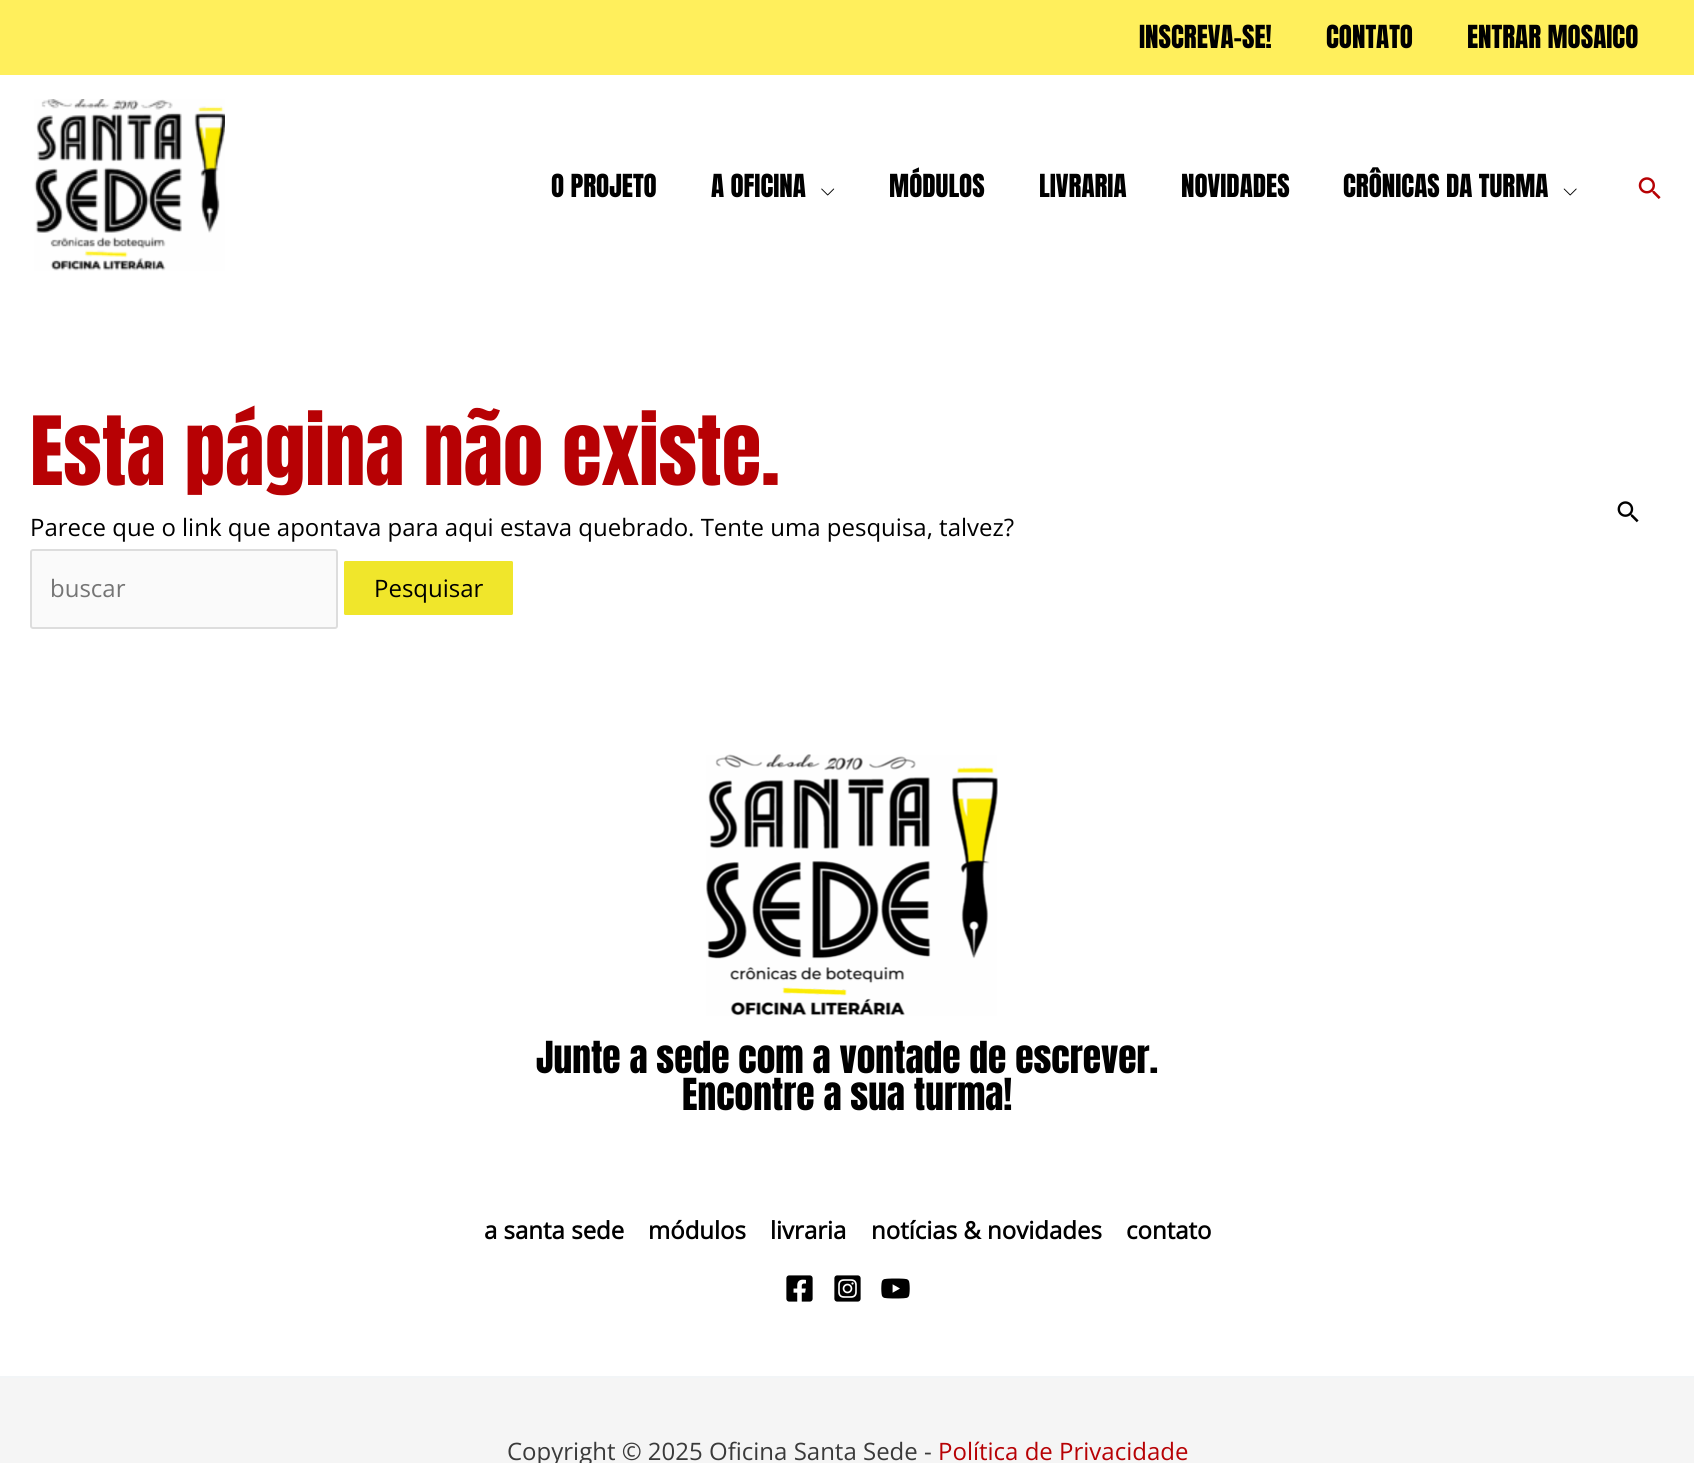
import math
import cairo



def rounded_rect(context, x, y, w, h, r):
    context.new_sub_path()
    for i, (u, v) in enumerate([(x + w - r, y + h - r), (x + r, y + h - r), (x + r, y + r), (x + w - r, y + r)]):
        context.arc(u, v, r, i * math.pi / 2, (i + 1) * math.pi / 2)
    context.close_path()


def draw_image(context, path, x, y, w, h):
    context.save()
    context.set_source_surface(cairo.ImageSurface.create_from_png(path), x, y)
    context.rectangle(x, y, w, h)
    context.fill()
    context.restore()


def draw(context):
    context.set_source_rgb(1, 1, 1)
    context.paint()
    context.set_source_rgb(1, 239 / 255, 92 / 255)
    context.rectangle(0, 0, 1694, 75)
    context.fill()
    draw_image(context, "images/1.png", 34, 99, 191, 172)
    draw_image(context, "images/2.png", 821, 188, 14, 8)
    draw_image(context, "images/3.png", 1563, 188, 14, 8)
    draw_image(context, "images/4.png", 1638, 177, 23, 22)
    draw_image(context, "images/5.png", 1617, 501, 22, 22)
    context.set_source_rgb(250 / 255, 250 / 255, 250 / 255)
    rounded_rect(context, 31, 550, 306, 78, 2)
    context.fill_preserve()
    context.set_source_rgb(221 / 255, 221 / 255, 221 / 255)
    context.stroke()
    context.set_source_rgb(240 / 255, 230 / 255, 43 / 255)
    rounded_rect(context, 344, 561, 169, 54, 1.5)
    context.fill()
    draw_image(context, "images/6.png", 706, 754, 292, 262)
    draw_image(context, "images/7.png", 786, 1275, 27, 27)
    draw_image(context, "images/8.png", 834, 1275, 27, 27)
    draw_image(context, "images/9.png", 881, 1278, 29, 21)
    context.set_source_rgb(245 / 255, 245 / 255, 245 / 255)
    context.rectangle(0, 1378, 1694, 85)
    context.fill()
    context.set_source_rgb(242 / 255, 245 / 255, 247 / 255)
    context.rectangle(0, 1376, 1694, 2)
    context.fill()
    context.select_font_face("Anton")
    context.set_font_size(27)
    context.set_source_rgb(0, 0, 0)
    context.move_to(1139, 48)
    context.show_text("INSCREVA-SE!")
    context.move_to(1326, 48)
    context.show_text("CONTATO")
    context.move_to(1467, 48)
    context.show_text("ENTRAR MOSAICO")
    context.move_to(551, 197)
    context.show_text("O PROJETO")
    context.move_to(711, 197)
    context.show_text("A OFICINA")
    context.move_to(889, 197)
    context.show_text("MÓDULOS")
    context.move_to(1039, 197)
    context.show_text("LIVRARIA")
    context.move_to(1181, 197)
    context.show_text("NOVIDADES")
    context.move_to(1343, 197)
    context.show_text("CRÔNICAS DA TURMA")
    context.set_font_size(81)
    context.set_source_rgb(183 / 255, 1 / 255, 4 / 255)
    context.move_to(30, 485)
    context.show_text("Esta página não existe.")
    context.select_font_face("Open Sans")
    context.set_font_size(24)
    context.set_source_rgb(0, 0, 0)
    context.move_to(30, 536)
    context.show_text("Parece que o link que apontava para aqui estava quebrado. Tente uma pesquisa, talvez?")
    context.set_source_rgb(117 / 255, 117 / 255, 117 / 255)
    context.move_to(50, 597)
    context.show_text("buscar")
    context.set_source_rgb(0, 0, 0)
    context.move_to(374, 597)
    context.show_text("Pesquisar")
    context.select_font_face("Anton")
    context.set_font_size(37.5)
    context.move_to(536, 1073)
    context.show_text("Junte a sede com a vontade de escrever.")
    context.move_to(682, 1110)
    context.show_text("Encontre a sua turma!")
    context.select_font_face("Open Sans", cairo.FontSlant.NORMAL, cairo.FontWeight.BOLD)
    context.set_font_size(24)
    context.move_to(484, 1239)
    context.show_text("a santa sede")
    context.move_to(648, 1239)
    context.show_text("módulos")
    context.move_to(770, 1239)
    context.show_text("livraria")
    context.move_to(871, 1239)
    context.show_text("notícias & novidades")
    context.move_to(1126, 1239)
    context.show_text("contato")
    context.select_font_face("Open Sans")
    context.set_source_rgb(58 / 255, 58 / 255, 58 / 255)
    context.move_to(507, 1460)
    context.show_text("Copyright © 2025 Oficina Santa Sede -")
    context.set_source_rgb(183 / 255, 1 / 255, 4 / 255)
    context.move_to(938, 1460)
    context.show_text("Política de Privacidade")


surface = cairo.ImageSurface(cairo.Format.RGB24, 1694, 1463)
context = cairo.Context(surface)
options = cairo.FontOptions()
options.set_hint_metrics(cairo.HintMetrics.OFF)
options.set_hint_style(cairo.HintStyle.NONE)
context.set_font_options(options)
context.set_miter_limit(4)
draw(context)
surface.write_to_png("out.png")
